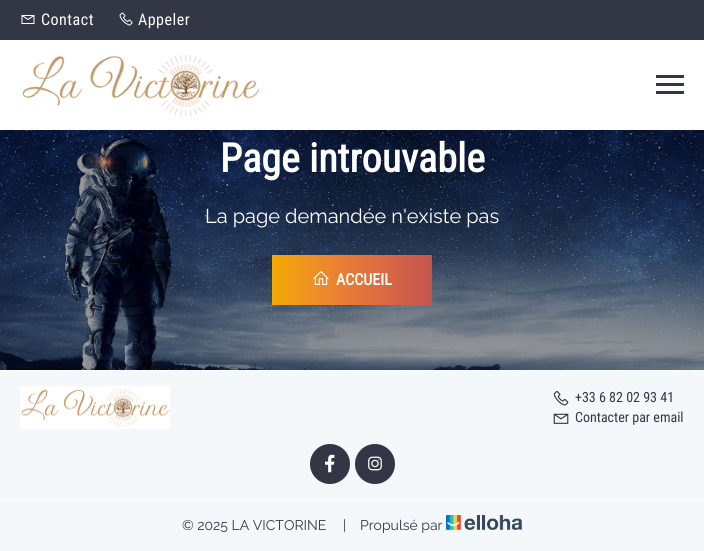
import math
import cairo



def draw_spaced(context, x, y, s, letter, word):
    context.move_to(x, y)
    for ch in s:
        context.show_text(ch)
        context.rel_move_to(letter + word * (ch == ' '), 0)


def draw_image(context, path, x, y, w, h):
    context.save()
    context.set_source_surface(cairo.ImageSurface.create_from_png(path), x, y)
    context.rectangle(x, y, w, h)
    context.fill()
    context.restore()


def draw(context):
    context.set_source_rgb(1, 1, 1)
    context.paint()
    context.set_source_rgb(51 / 255, 55 / 255, 69 / 255)
    context.rectangle(0, 0, 704, 40)
    context.fill()
    draw_image(context, "images/1.png", 21, 15, 14, 9)
    draw_image(context, "images/2.png", 119, 12, 14, 14)
    draw_image(context, "images/3.png", 22, 54, 238, 63)
    context.rectangle(656, 75, 28, 3)
    context.fill()
    context.rectangle(656, 83, 28, 3)
    context.fill()
    context.rectangle(656, 91, 28, 3)
    context.fill()
    draw_image(context, "images/4.png", 0, 130, 704, 240)
    gradient = cairo.LinearGradient(272, 280, 432, 280)
    gradient.add_color_stop_rgba(0, 242 / 255, 169 / 255, 0, 1)
    gradient.add_color_stop_rgba(0.25, 239 / 255, 144 / 255, 38 / 255, 1)
    gradient.add_color_stop_rgba(0.5, 230 / 255, 121 / 255, 56 / 255, 1)
    gradient.add_color_stop_rgba(0.75, 215 / 255, 101 / 255, 70 / 255, 1)
    gradient.add_color_stop_rgba(1, 194 / 255, 85 / 255, 79 / 255, 1)
    context.set_source(gradient)
    context.rectangle(272, 255, 160, 50)
    context.fill()
    draw_image(context, "images/5.png", 313, 270, 16, 15)
    context.set_source_rgb(245 / 255, 248 / 255, 250 / 255)
    context.rectangle(0, 371, 704, 128)
    context.fill()
    context.set_source_rgb(252 / 255, 253 / 255, 254 / 255)
    context.rectangle(0, 370, 704, 1)
    context.fill()
    context.rectangle(0, 499, 704, 1)
    context.fill()
    draw_image(context, "images/6.png", 20, 386, 150, 43)
    draw_image(context, "images/7.png", 553, 391, 16, 15)
    draw_image(context, "images/8.png", 553, 413, 16, 11)
    context.set_source_rgb(51 / 255, 55 / 255, 69 / 255)
    context.arc(330, 464, 20, 0, 2 * math.pi)
    context.fill()
    draw_image(context, "images/9.png", 325, 454, 10, 19)
    context.arc(375, 464, 20, 0, 2 * math.pi)
    context.fill()
    draw_image(context, "images/10.png", 368, 456, 14, 15)
    context.set_source_rgb(245 / 255, 248 / 255, 250 / 255)
    context.rectangle(0, 500, 704, 51)
    context.fill()
    draw_image(context, "images/11.png", 446, 515, 76, 15)
    context.select_font_face("Roboto Condensed")
    context.set_font_size(16)
    context.set_source_rgb(1, 1, 1)
    draw_spaced(context, 41, 25, "Contact", 0.5, 0)
    draw_spaced(context, 138, 25, "Appeler", 0.5, 0)
    context.select_font_face("Roboto Condensed", cairo.FontSlant.NORMAL, cairo.FontWeight.BOLD)
    context.set_font_size(40)
    context.move_to(220, 172)
    context.show_text("Page introuvable")
    context.select_font_face("Raleway Thin")
    context.set_font_size(20)
    context.move_to(205, 223)
    context.show_text("La page demandée n'existe pas")
    context.select_font_face("Roboto Condensed", cairo.FontSlant.NORMAL, cairo.FontWeight.BOLD)
    context.set_font_size(16)
    context.move_to(336, 285)
    context.show_text("ACCUEIL")
    context.select_font_face("Roboto Condensed")
    context.set_font_size(14)
    context.set_source_rgb(51 / 255, 55 / 255, 69 / 255)
    context.move_to(575, 402)
    context.show_text("+33 6 82 02 93 41")
    context.move_to(575, 422)
    context.show_text("Contacter par email")
    context.select_font_face("Raleway Thin")
    context.move_to(182, 530)
    context.show_text("© 2025 LA VICTORINE")
    context.move_to(343, 530)
    context.show_text("|")
    context.move_to(360, 530)
    context.show_text("Propulsé par")


surface = cairo.ImageSurface(cairo.Format.RGB24, 704, 551)
context = cairo.Context(surface)
options = cairo.FontOptions()
options.set_hint_metrics(cairo.HintMetrics.OFF)
options.set_hint_style(cairo.HintStyle.NONE)
context.set_font_options(options)
context.set_miter_limit(4)
draw(context)
surface.write_to_png("out.png")
